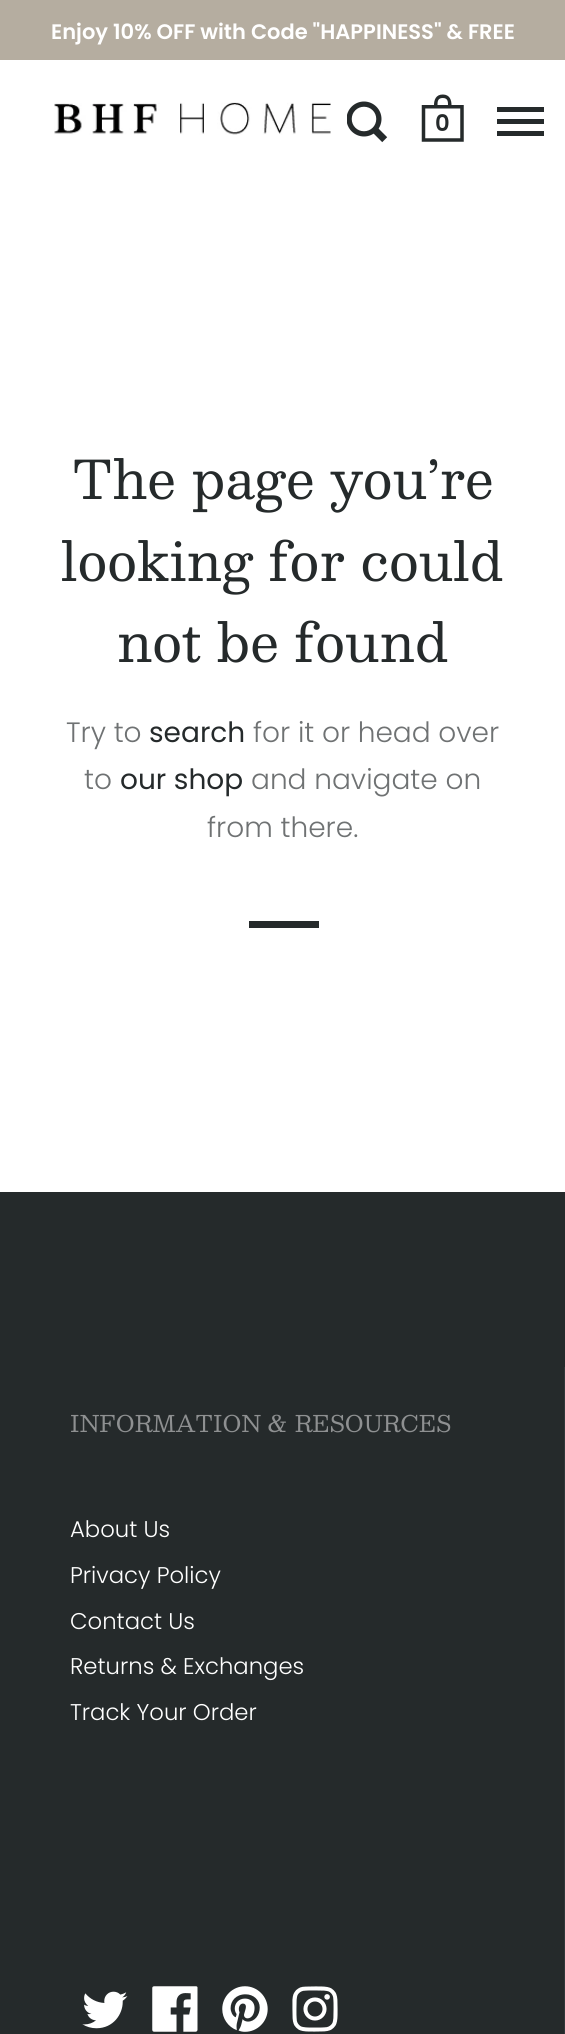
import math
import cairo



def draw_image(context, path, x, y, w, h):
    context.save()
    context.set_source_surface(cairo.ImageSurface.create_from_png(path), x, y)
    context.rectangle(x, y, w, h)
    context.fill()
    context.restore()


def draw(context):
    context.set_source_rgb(1, 1, 1)
    context.paint()
    context.set_source_rgb(181 / 255, 173 / 255, 160 / 255)
    context.rectangle(0, 0, 565, 60)
    context.fill()
    draw_image(context, "images/1.png", 54, 102, 277, 33)
    draw_image(context, "images/2.png", 347, 101, 41, 42)
    draw_image(context, "images/3.png", 421, 94, 43, 48)
    context.set_source_rgb(37 / 255, 42 / 255, 43 / 255)
    context.rectangle(497, 119, 47, 5)
    context.fill()
    context.rectangle(497, 107, 47, 5)
    context.fill()
    context.rectangle(497, 131, 47, 5)
    context.fill()
    context.rectangle(249, 921, 70, 7)
    context.fill()
    context.rectangle(0, 1192, 565, 842)
    context.fill()
    context.set_source_rgb(49 / 255, 55 / 255, 57 / 255)
    context.rectangle(564, 1367, 1, 667)
    context.fill()
    draw_image(context, "images/4.png", 82, 1991, 46, 38)
    draw_image(context, "images/5.png", 152, 1986, 46, 46)
    draw_image(context, "images/6.png", 222, 1986, 46, 46)
    draw_image(context, "images/7.png", 292, 1986, 46, 46)
    context.select_font_face("Poppins SemiBold")
    context.set_font_size(21)
    context.set_source_rgb(1, 1, 1)
    context.move_to(51, 39)
    context.show_text("Enjoy 10% OFF with Code \"HAPPINESS\" & FREE")
    context.set_font_size(22.75)
    context.set_source_rgb(37 / 255, 42 / 255, 43 / 255)
    context.move_to(435, 131)
    context.show_text("0")
    context.select_font_face("Besley")
    context.set_font_size(52.5)
    context.move_to(72, 499)
    context.show_text("The page you’re")
    context.move_to(61, 581)
    context.show_text("looking for could")
    context.move_to(117, 662)
    context.show_text("not be found")
    context.select_font_face("Poppins Light")
    context.set_font_size(28)
    context.set_source_rgb(111 / 255, 114 / 255, 115 / 255)
    context.move_to(66, 742)
    context.show_text("Try to")
    context.select_font_face("Poppins")
    context.set_source_rgb(37 / 255, 42 / 255, 43 / 255)
    context.move_to(149, 742)
    context.show_text("search")
    context.select_font_face("Poppins Light")
    context.set_source_rgb(111 / 255, 114 / 255, 115 / 255)
    context.move_to(253, 742)
    context.show_text("for it or head over")
    context.move_to(84, 789)
    context.show_text("to")
    context.select_font_face("Poppins")
    context.set_source_rgb(37 / 255, 42 / 255, 43 / 255)
    context.move_to(120, 789)
    context.show_text("our shop")
    context.select_font_face("Poppins Light")
    context.set_source_rgb(111 / 255, 114 / 255, 115 / 255)
    context.move_to(251, 789)
    context.show_text("and navigate on")
    context.move_to(207, 837)
    context.show_text("from there.")
    context.select_font_face("Besley")
    context.set_font_size(22.75)
    context.set_source_rgb(142 / 255, 144 / 255, 145 / 255)
    context.move_to(70, 1432)
    context.show_text("INFORMATION & RESOURCES")
    context.select_font_face("Poppins Light")
    context.set_source_rgb(1, 1, 1)
    context.move_to(70, 1537)
    context.show_text("About Us")
    context.move_to(70, 1583)
    context.show_text("Privacy Policy")
    context.move_to(70, 1629)
    context.show_text("Contact Us")
    context.move_to(70, 1674)
    context.show_text("Returns & Exchanges")
    context.move_to(70, 1720)
    context.show_text("Track Your Order")


surface = cairo.ImageSurface(cairo.Format.RGB24, 565, 2034)
context = cairo.Context(surface)
options = cairo.FontOptions()
options.set_hint_metrics(cairo.HintMetrics.OFF)
options.set_hint_style(cairo.HintStyle.NONE)
context.set_font_options(options)
context.set_miter_limit(4)
draw(context)
surface.write_to_png("out.png")
